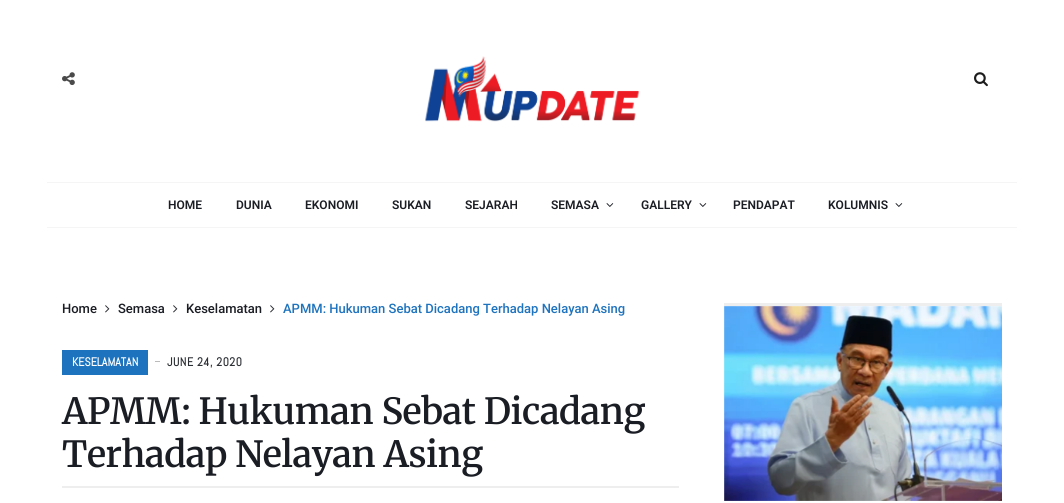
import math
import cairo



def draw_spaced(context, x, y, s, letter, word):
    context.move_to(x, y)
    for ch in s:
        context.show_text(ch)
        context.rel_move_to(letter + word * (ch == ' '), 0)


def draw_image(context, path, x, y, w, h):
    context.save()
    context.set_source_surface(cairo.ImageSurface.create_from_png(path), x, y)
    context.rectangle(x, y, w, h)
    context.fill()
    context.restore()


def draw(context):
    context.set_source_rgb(1, 1, 1)
    context.paint()
    draw_image(context, "images/1.png", 62, 72, 13, 14)
    draw_image(context, "images/2.png", 425, 56, 215, 66)
    draw_image(context, "images/3.png", 974, 72, 14, 15)
    context.set_source_rgb(245 / 255, 245 / 255, 245 / 255)
    context.rectangle(47, 182, 970, 1)
    context.fill()
    context.rectangle(47, 227, 970, 1)
    context.fill()
    draw_image(context, "images/4.png", 606, 203, 8, 4)
    draw_image(context, "images/4.png", 699, 203, 8, 4)
    draw_image(context, "images/4.png", 895, 203, 8, 4)
    draw_image(context, "images/5.png", 105, 305, 5, 8)
    draw_image(context, "images/5.png", 173, 305, 5, 8)
    draw_image(context, "images/5.png", 270, 305, 5, 8)
    context.set_source_rgb(30 / 255, 115 / 255, 190 / 255)
    context.rectangle(62, 350, 86, 25)
    context.fill()
    context.set_source_rgb(187 / 255, 187 / 255, 187 / 255)
    context.rectangle(155, 361, 5, 1)
    context.fill()
    context.set_source_rgb(238 / 255, 238 / 255, 238 / 255)
    context.rectangle(62, 486, 617, 2)
    context.fill()
    context.rectangle(724, 303, 278, 3)
    context.fill()
    draw_image(context, "images/6.png", 724, 306, 278, 195)
    context.select_font_face("Roboto SemiBold")
    context.set_font_size(12)
    context.set_source_rgb(27 / 255, 29 / 255, 37 / 255)
    context.move_to(168, 209)
    context.show_text("HOME")
    context.move_to(236, 209)
    context.show_text("DUNIA")
    context.move_to(305, 209)
    context.show_text("EKONOMI")
    context.move_to(392, 209)
    context.show_text("SUKAN")
    context.move_to(465, 209)
    context.show_text("SEJARAH")
    context.move_to(551, 209)
    context.show_text("SEMASA")
    context.move_to(641, 209)
    context.show_text("GALLERY")
    context.move_to(733, 209)
    context.show_text("PENDAPAT")
    context.move_to(828, 209)
    context.show_text("KOLUMNIS")
    context.select_font_face("Roboto Medium")
    context.set_font_size(13)
    context.move_to(62, 313)
    context.show_text("Home")
    context.move_to(118, 313)
    context.show_text("Semasa")
    context.move_to(186, 313)
    context.show_text("Keselamatan")
    context.set_source_rgb(30 / 255, 115 / 255, 190 / 255)
    context.move_to(283, 313)
    context.show_text("APMM: Hukuman Sebat Dicadang Terhadap Nelayan Asing")
    context.select_font_face("Abel", cairo.FontSlant.NORMAL, cairo.FontWeight.BOLD)
    context.set_font_size(12)
    context.set_source_rgb(1, 1, 1)
    context.move_to(72, 366)
    context.show_text("KESELAMATAN")
    context.set_source_rgb(44 / 255, 47 / 255, 52 / 255)
    draw_spaced(context, 167, 366, "JUNE 24, 2020", 0.5, 0)
    context.select_font_face("Merriweather SemiBold")
    context.set_font_size(36)
    context.set_source_rgb(27 / 255, 29 / 255, 37 / 255)
    draw_spaced(context, 62, 424, "APMM: Hukuman Sebat Dicadang", -0.4, 0)
    draw_spaced(context, 62, 467, "Terhadap Nelayan Asing", -0.4, 0)


surface = cairo.ImageSurface(cairo.Format.RGB24, 1064, 503)
context = cairo.Context(surface)
options = cairo.FontOptions()
options.set_hint_metrics(cairo.HintMetrics.OFF)
options.set_hint_style(cairo.HintStyle.NONE)
context.set_font_options(options)
context.set_miter_limit(4)
draw(context)
surface.write_to_png("out.png")
